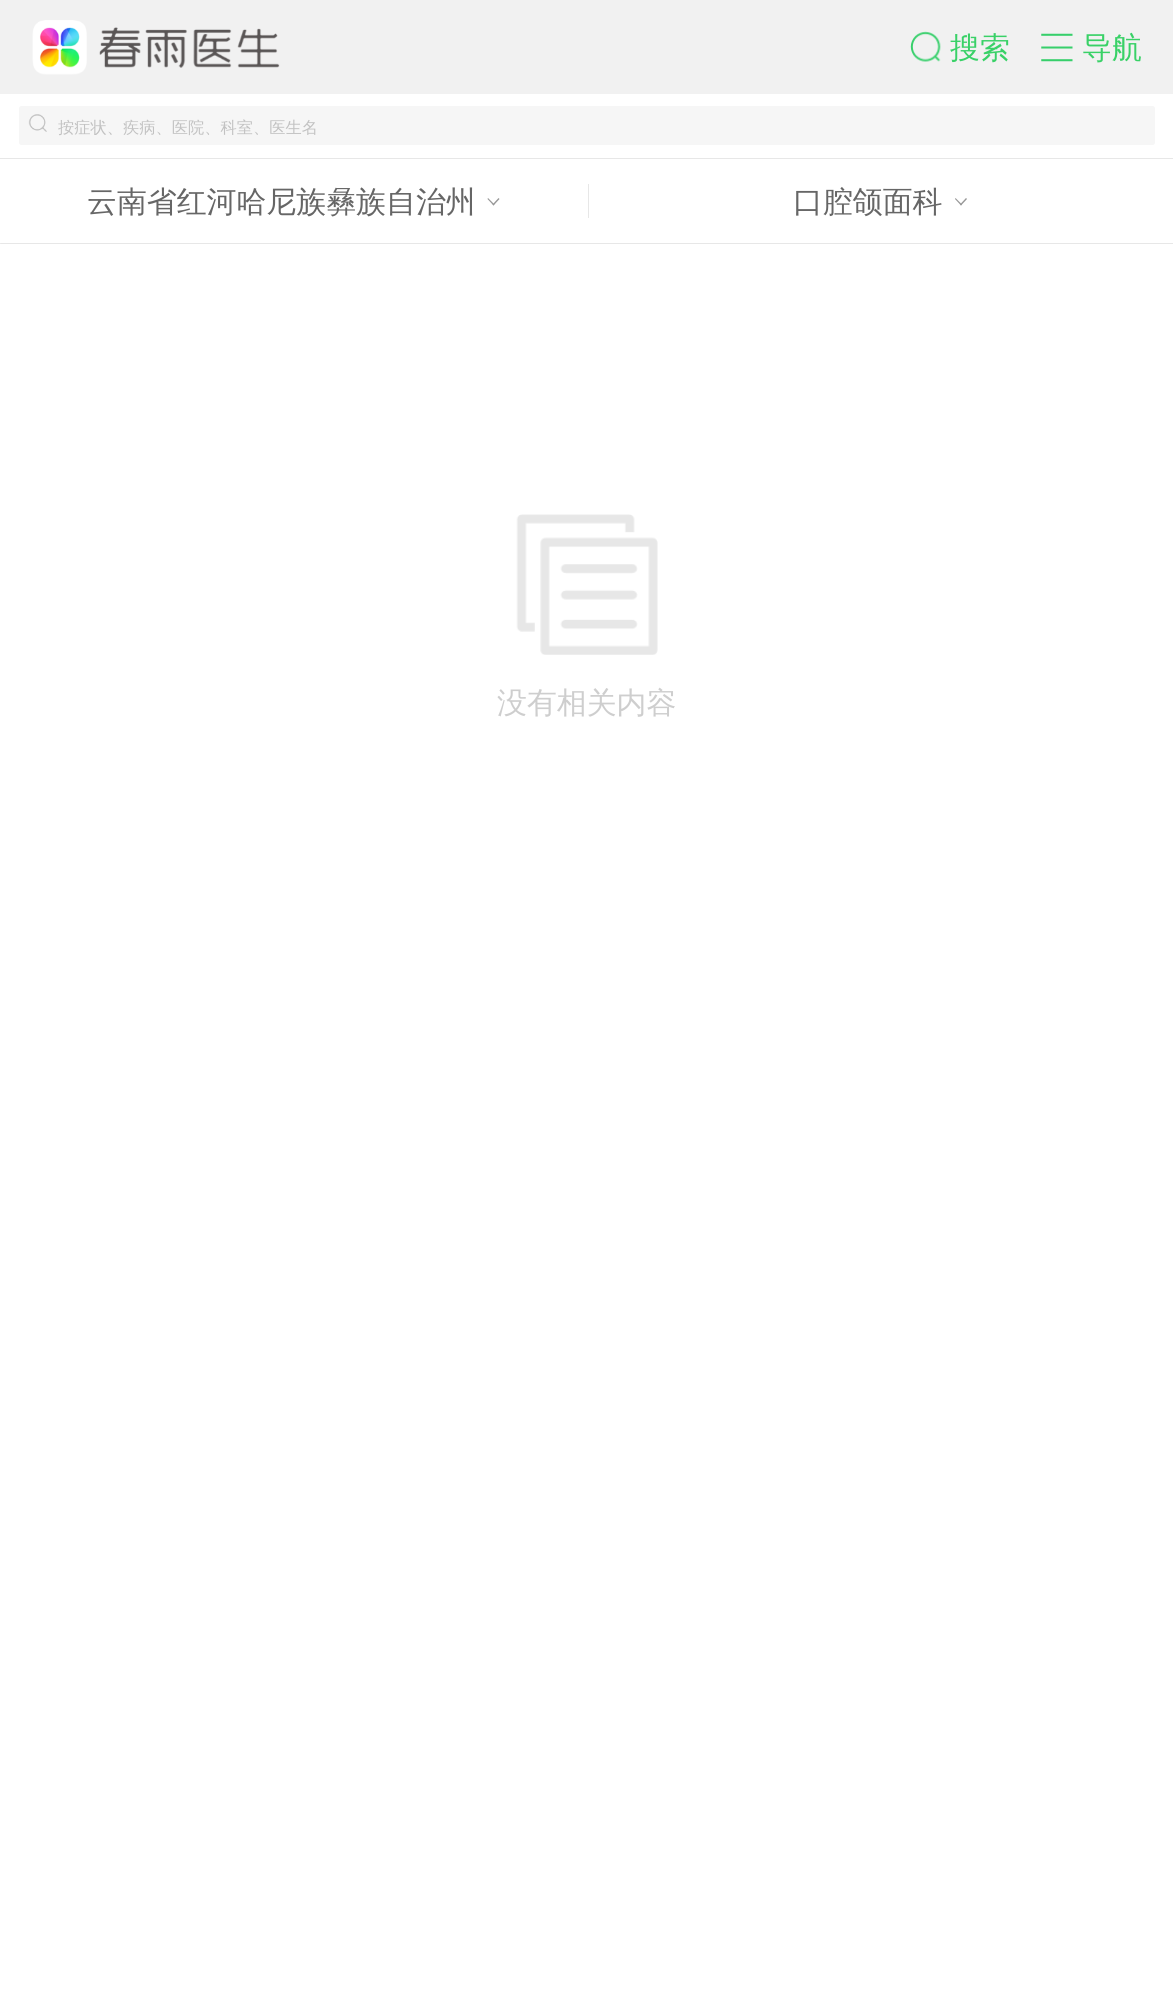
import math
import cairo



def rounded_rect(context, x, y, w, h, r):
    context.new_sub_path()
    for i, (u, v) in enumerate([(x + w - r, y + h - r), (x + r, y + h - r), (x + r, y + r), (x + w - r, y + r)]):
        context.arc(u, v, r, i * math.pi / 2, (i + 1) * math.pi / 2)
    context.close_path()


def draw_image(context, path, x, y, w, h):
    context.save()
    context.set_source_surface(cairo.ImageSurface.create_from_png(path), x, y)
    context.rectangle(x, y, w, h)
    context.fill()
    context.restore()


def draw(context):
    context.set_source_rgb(1, 1, 1)
    context.paint()
    context.set_source_rgb(241 / 255, 241 / 255, 241 / 255)
    context.rectangle(0, 0, 1173, 94)
    context.fill()
    draw_image(context, "images/1.png", 32, 20, 248, 55)
    draw_image(context, "images/2.png", 910, 31, 31, 31)
    draw_image(context, "images/3.png", 1041, 33, 32, 29)
    context.set_source_rgb(246 / 255, 246 / 255, 246 / 255)
    rounded_rect(context, 19, 106, 1136, 39, 2.5)
    context.fill()
    draw_image(context, "images/4.png", 28, 114, 19, 18)
    context.set_source_rgb(231 / 255, 231 / 255, 231 / 255)
    context.rectangle(0, 158, 1173, 1)
    context.fill()
    context.set_source_rgb(151 / 255, 151 / 255, 151 / 255)
    context.new_path()
    context.move_to(492.5, 204.5)
    context.line_to(498.5, 198)
    context.line_to(499.5, 199)
    context.line_to(493.5, 205.5)
    context.close_path()
    context.fill()
    context.new_path()
    context.move_to(487.5, 199)
    context.line_to(488, 198)
    context.line_to(494.5, 204.5)
    context.line_to(493.5, 205.5)
    context.close_path()
    context.fill()
    context.set_source_rgb(231 / 255, 231 / 255, 231 / 255)
    context.rectangle(588, 184, 1, 34)
    context.fill()
    context.set_source_rgb(151 / 255, 151 / 255, 151 / 255)
    context.new_path()
    context.move_to(960, 204.5)
    context.line_to(966, 198)
    context.line_to(967, 199)
    context.line_to(961, 205.5)
    context.close_path()
    context.fill()
    context.new_path()
    context.move_to(955, 199)
    context.line_to(955.5, 198)
    context.line_to(962, 204.5)
    context.line_to(961, 205.5)
    context.close_path()
    context.fill()
    context.set_source_rgb(231 / 255, 231 / 255, 231 / 255)
    rounded_rect(context, 0, 243, 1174, 1, 0.5)
    context.fill()
    draw_image(context, "images/5.png", 516, 514, 142, 141)
    context.select_font_face("WenQuanYi Zen Hei Medium")
    context.set_font_size(29.9)
    context.set_source_rgb(57 / 255, 209 / 255, 103 / 255)
    context.move_to(950, 58)
    context.show_text("搜索")
    context.move_to(1082, 58)
    context.show_text("导航")
    context.set_font_size(16.25)
    context.set_source_rgb(194 / 255, 194 / 255, 194 / 255)
    context.move_to(58, 133)
    context.show_text("按症状、疾病、医院、科室、医生名")
    context.set_font_size(29.9)
    context.set_source_rgb(102 / 255, 102 / 255, 102 / 255)
    context.move_to(87, 212)
    context.show_text("云南省红河哈尼族彝族自治州")
    context.move_to(793, 212)
    context.show_text("口腔颌面科")
    context.set_source_rgb(206 / 255, 206 / 255, 206 / 255)
    context.move_to(497, 713)
    context.show_text("没有相关内容")


surface = cairo.ImageSurface(cairo.Format.RGB24, 1173, 2013)
context = cairo.Context(surface)
options = cairo.FontOptions()
options.set_hint_metrics(cairo.HintMetrics.OFF)
options.set_hint_style(cairo.HintStyle.NONE)
context.set_font_options(options)
context.set_miter_limit(4)
draw(context)
surface.write_to_png("out.png")
